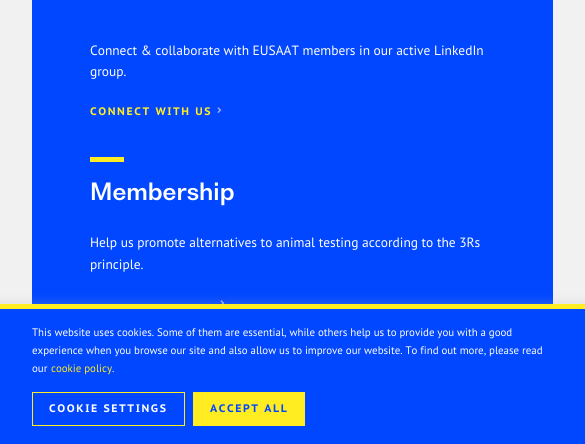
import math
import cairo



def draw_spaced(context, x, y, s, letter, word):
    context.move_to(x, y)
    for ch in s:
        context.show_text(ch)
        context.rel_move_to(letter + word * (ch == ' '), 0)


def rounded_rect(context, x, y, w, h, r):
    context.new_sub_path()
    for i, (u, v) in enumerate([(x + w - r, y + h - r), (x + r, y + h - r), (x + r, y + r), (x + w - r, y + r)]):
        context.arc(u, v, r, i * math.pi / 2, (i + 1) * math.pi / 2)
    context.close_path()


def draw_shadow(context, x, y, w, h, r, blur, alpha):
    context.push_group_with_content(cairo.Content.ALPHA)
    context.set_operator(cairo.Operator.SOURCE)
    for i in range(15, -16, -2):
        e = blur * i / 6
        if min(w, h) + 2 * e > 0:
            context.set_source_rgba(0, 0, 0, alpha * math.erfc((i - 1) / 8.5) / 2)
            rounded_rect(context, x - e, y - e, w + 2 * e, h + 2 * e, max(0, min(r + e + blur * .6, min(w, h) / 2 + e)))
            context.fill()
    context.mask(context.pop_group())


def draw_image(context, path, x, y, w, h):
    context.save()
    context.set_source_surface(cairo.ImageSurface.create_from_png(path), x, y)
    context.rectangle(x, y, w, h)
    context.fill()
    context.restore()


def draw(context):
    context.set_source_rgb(241 / 255, 241 / 255, 241 / 255)
    context.paint()
    context.set_source_rgb(1 / 255, 71 / 255, 1)
    context.rectangle(32, 0, 521, 304)
    context.fill()
    draw_image(context, "images/1.png", 217, 107, 5, 6)
    context.set_source_rgb(1, 237 / 255, 34 / 255)
    context.rectangle(90, 157, 34, 5)
    context.fill()
    draw_image(context, "images/2.png", 220, 300, 5, 4)
    context.set_source_rgb(172 / 255, 171 / 255, 171 / 255)
    draw_shadow(context, 0, 303, 585, 140, 0, 5, 0.3)
    context.set_source_rgb(1 / 255, 71 / 255, 1)
    context.rectangle(0, 309, 585, 135)
    context.fill()
    context.set_source_rgb(1, 237 / 255, 34 / 255)
    context.rectangle(0, 304, 585, 5)
    context.fill()
    context.rectangle(32.5, 392.5, 152, 33)
    context.set_line_width(1)
    context.stroke()
    context.rectangle(193, 392, 112, 34)
    context.fill()
    context.select_font_face("PT Sans")
    context.set_font_size(13.45)
    context.set_source_rgb(1, 1, 1)
    context.move_to(90, 55)
    context.show_text("Connect & collaborate with EUSAAT members in our active LinkedIn")
    context.move_to(90, 76)
    context.show_text("group.")
    context.select_font_face("PT Sans Caption", cairo.FontSlant.NORMAL, cairo.FontWeight.BOLD)
    context.set_font_size(10.9)
    context.set_source_rgb(1, 237 / 255, 34 / 255)
    draw_spaced(context, 90, 115, "CONNECT WITH US", 1.6, 0)
    context.select_font_face("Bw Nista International", cairo.FontSlant.NORMAL, cairo.FontWeight.BOLD)
    context.set_font_size(22.75)
    context.set_source_rgb(1, 1, 1)
    context.move_to(90, 200)
    context.show_text("Membership")
    context.select_font_face("PT Sans")
    context.set_font_size(13.45)
    context.move_to(90, 247)
    context.show_text("Help us promote alternatives to animal testing according to the 3Rs")
    context.move_to(90, 269)
    context.show_text("principle.")
    context.set_font_size(10.9)
    context.move_to(32, 336)
    context.show_text("This website uses cookies. Some of them are essential, while others help us to provide you with a good")
    context.move_to(32, 354)
    context.show_text("experience when you browse our site and also allow us to improve our website. To find out more, please read")
    context.move_to(32, 372)
    context.show_text("our")
    context.set_source_rgb(1, 237 / 255, 34 / 255)
    context.move_to(51, 372)
    context.show_text("cookie policy")
    context.set_source_rgb(1, 1, 1)
    context.move_to(112, 372)
    context.show_text(".")
    context.select_font_face("PT Sans Caption", cairo.FontSlant.NORMAL, cairo.FontWeight.BOLD)
    draw_spaced(context, 49, 412, "COOKIE SETTINGS", 1.6, 0)
    context.set_source_rgb(1 / 255, 71 / 255, 1)
    draw_spaced(context, 210, 412, "ACCEPT ALL", 1.6, 0)


surface = cairo.ImageSurface(cairo.Format.RGB24, 585, 444)
context = cairo.Context(surface)
options = cairo.FontOptions()
options.set_hint_metrics(cairo.HintMetrics.OFF)
options.set_hint_style(cairo.HintStyle.NONE)
context.set_font_options(options)
context.set_miter_limit(4)
draw(context)
surface.write_to_png("out.png")
